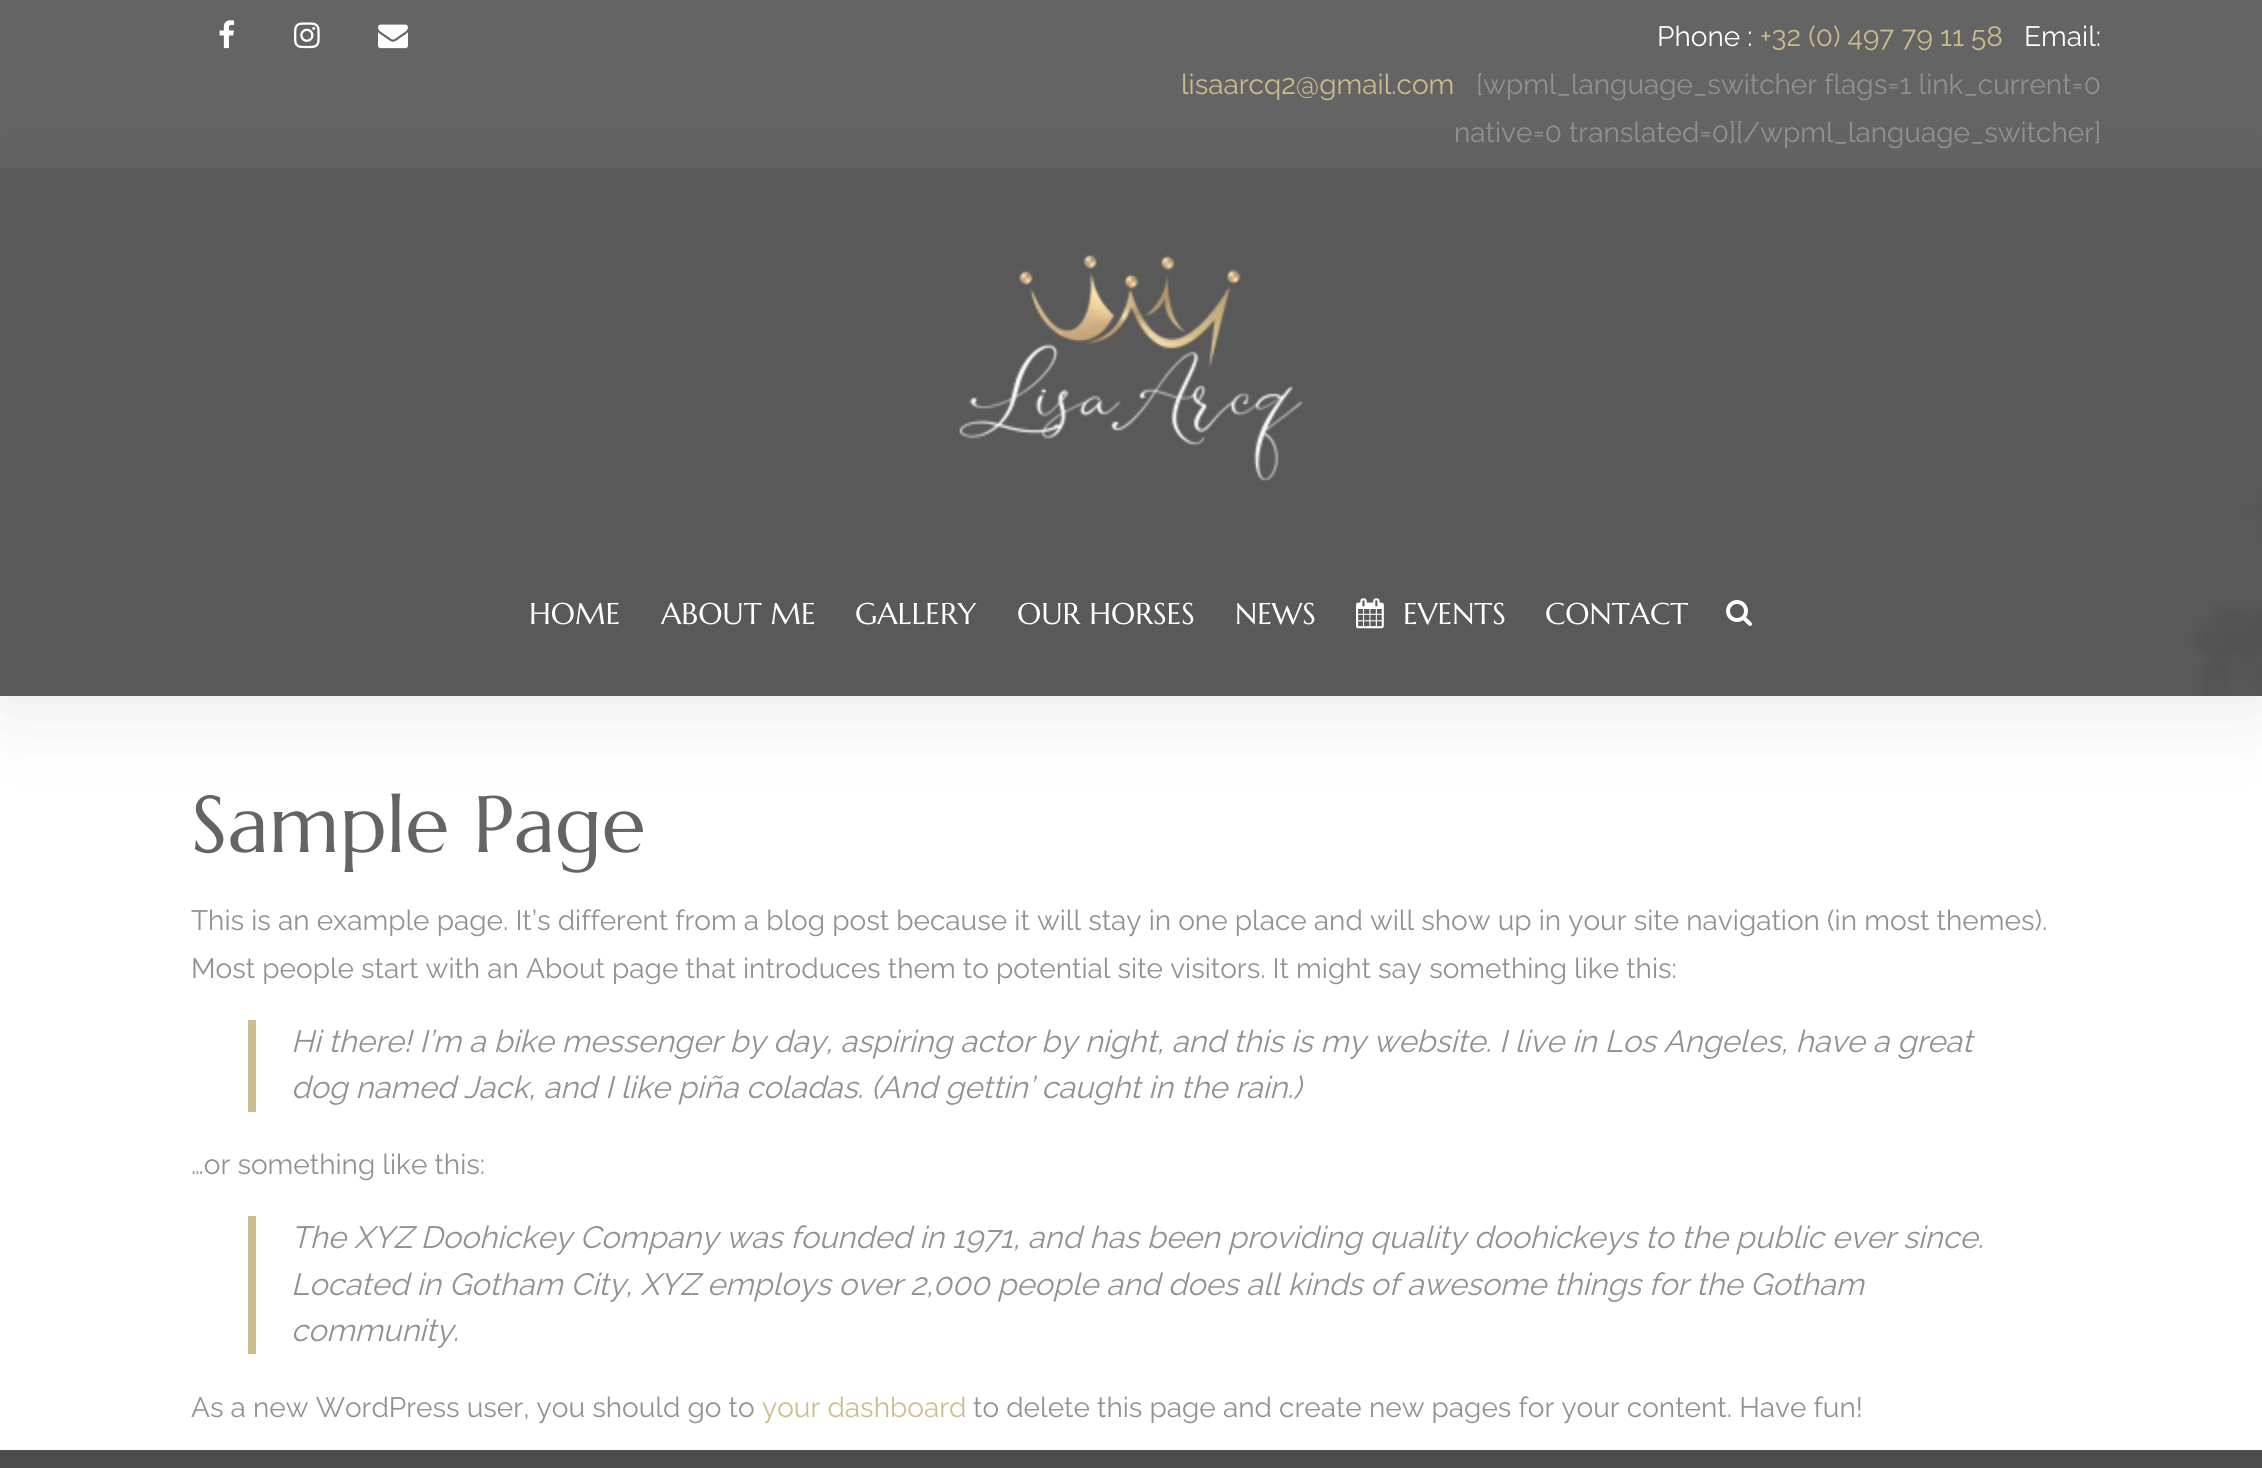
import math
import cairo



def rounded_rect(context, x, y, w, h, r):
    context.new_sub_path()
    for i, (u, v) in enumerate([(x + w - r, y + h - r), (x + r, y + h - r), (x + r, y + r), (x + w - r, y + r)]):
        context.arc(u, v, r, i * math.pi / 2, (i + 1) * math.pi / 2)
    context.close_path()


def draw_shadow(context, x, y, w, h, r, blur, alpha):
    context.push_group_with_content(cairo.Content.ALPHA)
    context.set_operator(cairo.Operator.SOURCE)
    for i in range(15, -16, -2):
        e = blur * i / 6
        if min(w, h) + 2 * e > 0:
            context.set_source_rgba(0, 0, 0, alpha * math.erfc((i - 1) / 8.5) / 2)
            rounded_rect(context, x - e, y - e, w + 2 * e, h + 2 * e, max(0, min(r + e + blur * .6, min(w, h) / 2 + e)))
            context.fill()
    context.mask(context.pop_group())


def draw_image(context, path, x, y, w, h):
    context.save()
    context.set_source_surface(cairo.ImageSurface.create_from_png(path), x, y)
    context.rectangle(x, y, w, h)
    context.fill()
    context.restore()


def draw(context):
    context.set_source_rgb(77 / 255, 77 / 255, 77 / 255)
    context.paint()
    context.set_source_rgb(1, 1, 1)
    context.rectangle(0, 696, 2262, 754)
    context.fill()
    context.set_source_rgb(100 / 255, 100 / 255, 100 / 255)
    context.rectangle(0, 0, 2262, 168)
    context.fill()
    context.set_source_rgb(77 / 255, 77 / 255, 77 / 255)
    draw_shadow(context, 0, 168, 2262, 528, 0, 50, 0.15)
    draw_image(context, "images/1.png", 219, 20, 16, 29)
    draw_image(context, "images/2.png", 294, 22, 26, 27)
    draw_image(context, "images/3.png", 378, 24, 30, 25)
    draw_image(context, "images/4.png", 0, 168, 2262, 528)
    draw_image(context, "images/5.png", 959, 255, 344, 226)
    draw_image(context, "images/6.png", 1356, 598, 28, 31)
    draw_image(context, "images/7.png", 1726, 600, 26, 26)
    context.set_source_rgb(205 / 255, 188 / 255, 141 / 255)
    context.rectangle(248, 1020, 8, 92)
    context.fill()
    context.rectangle(248, 1216, 8, 138)
    context.fill()
    context.select_font_face("Raleway Thin")
    context.set_font_size(28)
    context.set_source_rgb(1, 1, 1)
    context.move_to(1657, 46)
    context.show_text("Phone :")
    context.set_source_rgb(205 / 255, 188 / 255, 141 / 255)
    context.move_to(1760, 46)
    context.show_text("+32 (0) 497 79 11 58")
    context.set_source_rgb(1, 1, 1)
    context.move_to(2024, 46)
    context.show_text("Email:")
    context.set_source_rgb(205 / 255, 188 / 255, 141 / 255)
    context.move_to(1181, 94)
    context.show_text("lisaarcq2@gmail.com")
    context.set_source_rgb(143 / 255, 145 / 255, 146 / 255)
    context.move_to(1476, 94)
    context.show_text("[wpml_language_switcher flags=1 link_current=0")
    context.move_to(1454, 142)
    context.show_text("native=0 translated=0][/wpml_language_switcher]")
    context.select_font_face("Marcellus")
    context.set_font_size(30)
    context.set_source_rgb(1, 1, 1)
    context.move_to(529, 624)
    context.show_text("HOME")
    context.move_to(661, 624)
    context.show_text("ABOUT ME")
    context.move_to(855, 624)
    context.show_text("GALLERY")
    context.move_to(1017, 624)
    context.show_text("OUR HORSES")
    context.move_to(1235, 624)
    context.show_text("NEWS")
    context.move_to(1403, 624)
    context.show_text("EVENTS")
    context.move_to(1545, 624)
    context.show_text("CONTACT")
    context.set_font_size(80)
    context.set_source_rgb(100 / 255, 100 / 255, 100 / 255)
    context.move_to(191, 852)
    context.show_text("Sample Page")
    context.select_font_face("Raleway Thin")
    context.set_font_size(28)
    context.set_source_rgb(143 / 255, 145 / 255, 146 / 255)
    context.move_to(191, 930)
    context.show_text("This is an example page. It’s different from a blog post because it will stay in one place and will show up in your site navigation (in most themes).")
    context.move_to(191, 978)
    context.show_text("Most people start with an About page that introduces them to potential site visitors. It might say something like this:")
    context.select_font_face("Raleway Thin", cairo.FontSlant.ITALIC)
    context.set_font_size(30.8)
    context.move_to(291, 1052)
    context.show_text("Hi there! I’m a bike messenger by day, aspiring actor by night, and this is my website. I live in Los Angeles, have a great")
    context.move_to(291, 1098)
    context.show_text("dog named Jack, and I like piña coladas. (And gettin’ caught in the rain.)")
    context.select_font_face("Raleway Thin")
    context.set_font_size(28)
    context.move_to(191, 1174)
    context.show_text("…or something like this:")
    context.select_font_face("Raleway Thin", cairo.FontSlant.ITALIC)
    context.set_font_size(30.8)
    context.move_to(291, 1248)
    context.show_text("The XYZ Doohickey Company was founded in 1971, and has been providing quality doohickeys to the public ever since.")
    context.move_to(291, 1295)
    context.show_text("Located in Gotham City, XYZ employs over 2,000 people and does all kinds of awesome things for the Gotham")
    context.move_to(291, 1341)
    context.show_text("community.")
    context.select_font_face("Raleway Thin")
    context.set_font_size(28)
    context.move_to(191, 1417)
    context.show_text("As a new WordPress user, you should go to")
    context.set_source_rgb(205 / 255, 188 / 255, 141 / 255)
    context.move_to(762, 1417)
    context.show_text("your dashboard")
    context.set_source_rgb(143 / 255, 145 / 255, 146 / 255)
    context.move_to(973, 1417)
    context.show_text("to delete this page and create new pages for your content. Have fun!")


surface = cairo.ImageSurface(cairo.Format.RGB24, 2262, 1468)
context = cairo.Context(surface)
options = cairo.FontOptions()
options.set_hint_metrics(cairo.HintMetrics.OFF)
options.set_hint_style(cairo.HintStyle.NONE)
context.set_font_options(options)
context.set_miter_limit(4)
draw(context)
surface.write_to_png("out.png")
